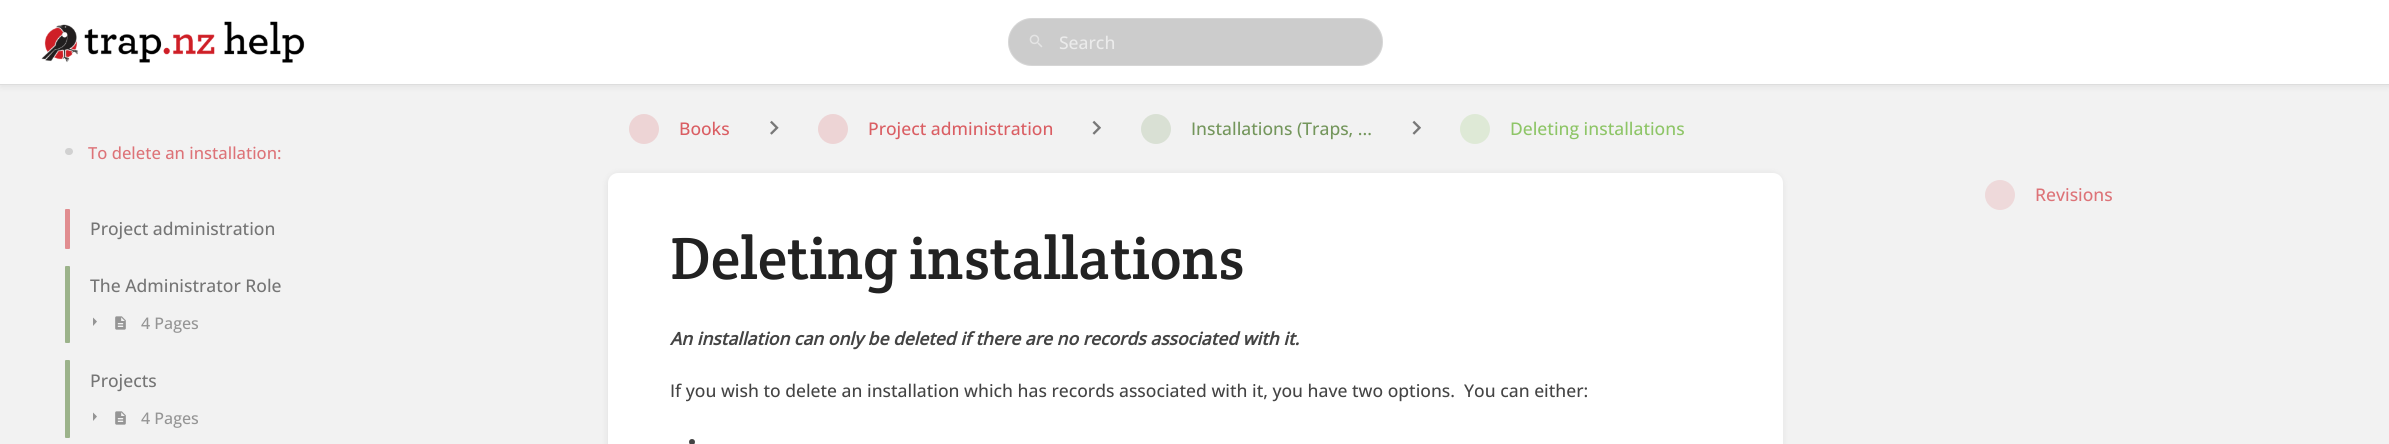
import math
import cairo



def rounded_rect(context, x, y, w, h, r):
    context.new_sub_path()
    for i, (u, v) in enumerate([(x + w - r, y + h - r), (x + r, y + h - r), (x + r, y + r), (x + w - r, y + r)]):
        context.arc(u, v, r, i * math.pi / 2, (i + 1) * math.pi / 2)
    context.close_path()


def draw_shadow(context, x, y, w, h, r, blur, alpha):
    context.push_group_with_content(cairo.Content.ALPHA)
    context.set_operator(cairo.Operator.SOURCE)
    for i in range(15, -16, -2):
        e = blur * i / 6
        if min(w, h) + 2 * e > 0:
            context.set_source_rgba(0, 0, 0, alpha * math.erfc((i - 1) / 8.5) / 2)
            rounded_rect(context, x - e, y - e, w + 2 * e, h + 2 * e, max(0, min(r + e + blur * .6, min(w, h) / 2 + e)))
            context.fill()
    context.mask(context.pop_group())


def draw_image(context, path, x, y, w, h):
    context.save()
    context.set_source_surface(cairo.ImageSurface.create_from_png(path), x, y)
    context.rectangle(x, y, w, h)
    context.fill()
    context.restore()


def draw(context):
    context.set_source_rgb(242 / 255, 242 / 255, 242 / 255)
    context.paint()
    context.set_source_rgb(0, 0, 0)
    draw_shadow(context, 1, 3, 2388, 82, 0, 4, 0.1)
    context.set_source_rgb(1, 1, 1)
    context.rectangle(0, 0, 2389, 84)
    context.fill()
    context.set_source_rgb(221 / 255, 221 / 255, 221 / 255)
    context.rectangle(0, 84, 2389, 1)
    context.fill()
    draw_image(context, "images/1.png", 41, 21, 264, 42)
    context.set_source_rgb(204 / 255, 204 / 255, 204 / 255)
    rounded_rect(context, 1008, 18, 375, 48, 24)
    context.fill()
    rounded_rect(context, 1008.5, 18.5, 374, 47, 23.5)
    context.set_source_rgba(1, 1, 1, 0.2)
    context.set_line_width(1)
    context.stroke()
    draw_image(context, "images/2.png", 1029, 34, 14, 14)
    context.set_source_rgb(237 / 255, 212 / 255, 213 / 255)
    context.arc(644, 129, 15, 0, 2 * math.pi)
    context.fill()
    draw_image(context, "images/3.png", 770, 120, 9, 15)
    context.arc(833, 129, 15, 0, 2 * math.pi)
    context.fill()
    draw_image(context, "images/4.png", 1092, 120, 9, 15)
    context.set_source_rgb(217 / 255, 224 / 255, 212 / 255)
    context.arc(1156, 129, 15, 0, 2 * math.pi)
    context.fill()
    draw_image(context, "images/4.png", 1412, 120, 9, 15)
    context.set_source_rgb(222 / 255, 233 / 255, 214 / 255)
    context.arc(1475, 129, 15, 0, 2 * math.pi)
    context.fill()
    context.set_source_rgb(0, 0, 0)
    draw_shadow(context, 609, 175, 1172, 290, 9, 4, 0.1)
    context.set_source_rgb(1, 1, 1)
    rounded_rect(context, 608, 173, 1175, 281, 10)
    context.fill()
    context.set_source_rgb(68 / 255, 68 / 255, 68 / 255)
    context.arc(692, 442, 3, 0, 2 * math.pi)
    context.fill()
    context.set_source_rgb(209 / 255, 209 / 255, 209 / 255)
    rounded_rect(context, 65, 148, 8, 7, 3.5)
    context.fill()
    context.set_source_rgb(225 / 255, 141 / 255, 144 / 255)
    rounded_rect(context, 65, 209, 5, 40, 1)
    context.fill()
    context.set_source_rgb(156 / 255, 179 / 255, 139 / 255)
    rounded_rect(context, 65, 266, 5, 39, 1)
    context.fill()
    rounded_rect(context, 65, 303, 5, 40, 1)
    context.fill()
    context.set_source_rgb(149 / 255, 149 / 255, 149 / 255)
    context.new_path()
    context.move_to(93, 326)
    context.line_to(97, 321.5)
    context.line_to(93, 317.5)
    context.close_path()
    context.fill()
    draw_image(context, "images/5.png", 115, 316, 11, 14)
    context.set_source_rgb(156 / 255, 179 / 255, 139 / 255)
    rounded_rect(context, 65, 360, 5, 40, 1)
    context.fill()
    rounded_rect(context, 65, 398, 5, 40, 1)
    context.fill()
    context.set_source_rgb(149 / 255, 149 / 255, 149 / 255)
    context.new_path()
    context.move_to(93, 421)
    context.line_to(97, 416.5)
    context.line_to(93, 412.5)
    context.close_path()
    context.fill()
    draw_image(context, "images/5.png", 115, 411, 11, 14)
    context.set_source_rgb(238 / 255, 217 / 255, 218 / 255)
    context.arc(2000, 195, 15, 0, 2 * math.pi)
    context.fill()
    context.select_font_face("Open Sans Medium")
    context.set_font_size(17.5)
    context.set_source_rgb(235 / 255, 235 / 255, 235 / 255)
    context.move_to(1059, 49)
    context.show_text("Search")
    context.set_source_rgb(218 / 255, 94 / 255, 99 / 255)
    context.move_to(679, 135)
    context.show_text("Books")
    context.move_to(868, 135)
    context.show_text("Project administration")
    context.set_source_rgb(116 / 255, 150 / 255, 92 / 255)
    context.move_to(1191, 135)
    context.show_text("Installations (Traps, ...")
    context.set_source_rgb(142 / 255, 197 / 255, 103 / 255)
    context.move_to(1510, 135)
    context.show_text("Deleting installations")
    context.select_font_face("Crete Round")
    context.set_font_size(60)
    context.set_source_rgb(34 / 255, 34 / 255, 34 / 255)
    context.move_to(670, 279)
    context.show_text("Deleting installations")
    context.select_font_face("Open Sans", cairo.FontSlant.ITALIC, cairo.FontWeight.BOLD)
    context.set_font_size(17.5)
    context.set_source_rgb(68 / 255, 68 / 255, 68 / 255)
    context.move_to(670, 345)
    context.show_text("An installation can only be deleted if there are no records associated with it.")
    context.select_font_face("Open Sans Medium")
    context.move_to(670, 397)
    context.show_text("If you wish to delete an installation which has records associated with it, you have two options.  You can either:")
    context.set_font_size(16.6)
    context.set_source_rgb(221 / 255, 115 / 255, 120 / 255)
    context.move_to(88, 159)
    context.show_text("To delete an installation:")
    context.set_font_size(17.5)
    context.set_source_rgb(117 / 255, 117 / 255, 117 / 255)
    context.move_to(90, 235)
    context.show_text("Project administration")
    context.move_to(90, 292)
    context.show_text("The Administrator Role")
    context.set_font_size(16)
    context.set_source_rgb(149 / 255, 149 / 255, 149 / 255)
    context.move_to(141, 329)
    context.show_text("4 Pages")
    context.set_font_size(17.5)
    context.set_source_rgb(117 / 255, 117 / 255, 117 / 255)
    context.move_to(90, 387)
    context.show_text("Projects")
    context.set_font_size(16)
    context.set_source_rgb(149 / 255, 149 / 255, 149 / 255)
    context.move_to(141, 424)
    context.show_text("4 Pages")
    context.set_font_size(17.5)
    context.set_source_rgb(221 / 255, 115 / 255, 120 / 255)
    context.move_to(2035, 201)
    context.show_text("Revisions")


surface = cairo.ImageSurface(cairo.Format.RGB24, 2389, 444)
context = cairo.Context(surface)
options = cairo.FontOptions()
options.set_hint_metrics(cairo.HintMetrics.OFF)
options.set_hint_style(cairo.HintStyle.NONE)
context.set_font_options(options)
context.set_miter_limit(4)
draw(context)
surface.write_to_png("out.png")
